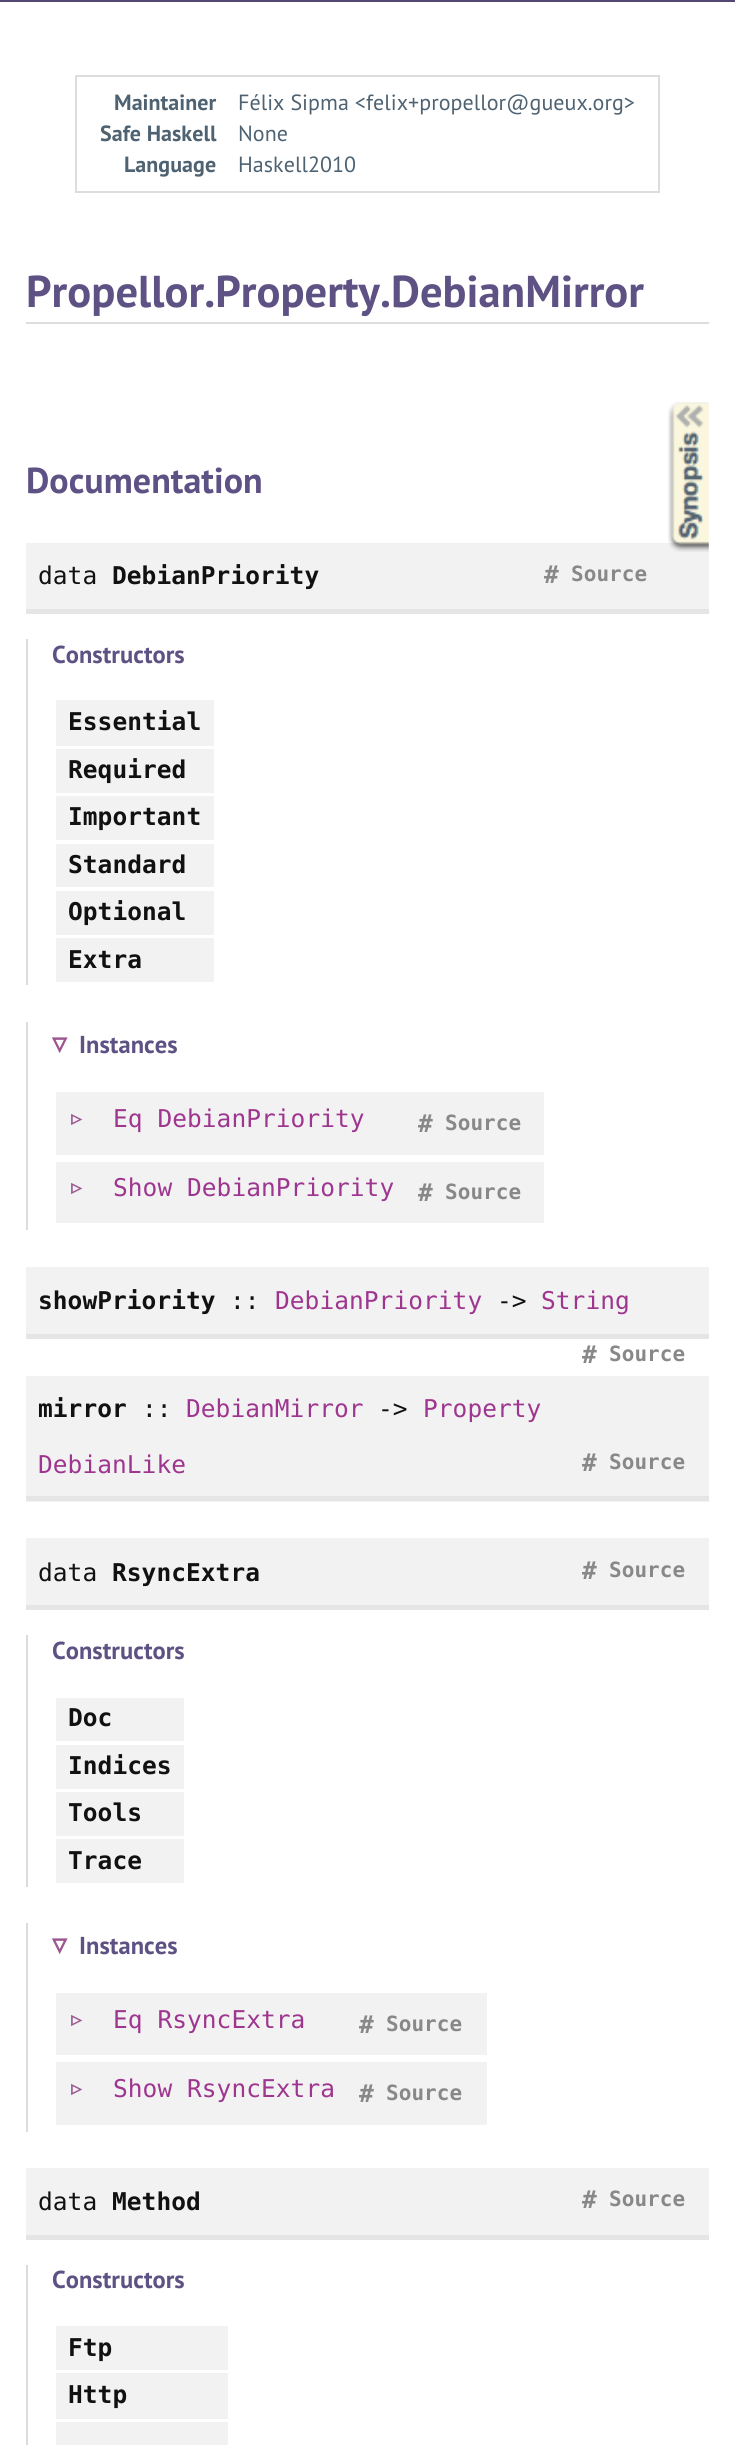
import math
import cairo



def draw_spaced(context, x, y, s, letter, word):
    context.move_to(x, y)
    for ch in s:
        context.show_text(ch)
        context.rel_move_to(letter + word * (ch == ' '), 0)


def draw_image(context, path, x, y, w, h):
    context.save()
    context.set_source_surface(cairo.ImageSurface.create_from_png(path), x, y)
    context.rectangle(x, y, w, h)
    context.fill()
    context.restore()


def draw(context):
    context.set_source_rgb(1, 1, 1)
    context.paint()
    context.set_source_rgb(82 / 255, 70 / 255, 115 / 255)
    context.rectangle(0, 0, 735, 2)
    context.fill()
    context.rectangle(76, 76, 583, 116)
    context.set_source_rgb(221 / 255, 221 / 255, 221 / 255)
    context.stroke()
    context.rectangle(26, 322, 683, 2)
    context.fill()
    context.set_source_rgb(242 / 255, 242 / 255, 242 / 255)
    context.rectangle(26, 543, 683, 66)
    context.fill()
    context.set_source_rgb(229 / 255, 229 / 255, 229 / 255)
    context.rectangle(26, 609, 683, 5)
    context.fill()
    context.set_source_rgb(220 / 255, 220 / 255, 220 / 255)
    context.rectangle(26, 639, 2, 346)
    context.fill()
    context.set_source_rgb(242 / 255, 242 / 255, 242 / 255)
    context.rectangle(56, 700, 158, 46)
    context.fill()
    context.rectangle(56, 749, 158, 44)
    context.fill()
    context.rectangle(56, 796, 158, 44)
    context.fill()
    context.rectangle(56, 844, 158, 43)
    context.fill()
    context.rectangle(56, 891, 158, 44)
    context.fill()
    context.rectangle(56, 938, 158, 44)
    context.fill()
    context.set_source_rgb(220 / 255, 220 / 255, 220 / 255)
    context.rectangle(26, 1022, 2, 208)
    context.fill()
    context.set_source_rgb(242 / 255, 242 / 255, 242 / 255)
    context.rectangle(56, 1092, 488, 63)
    context.fill()
    context.rectangle(56, 1162, 488, 61)
    context.fill()
    context.rectangle(26, 1267, 683, 67)
    context.fill()
    context.set_source_rgb(229 / 255, 229 / 255, 229 / 255)
    context.rectangle(26, 1334, 683, 5)
    context.fill()
    context.set_source_rgb(242 / 255, 242 / 255, 242 / 255)
    context.rectangle(26, 1376, 683, 126)
    context.fill()
    context.set_source_rgb(229 / 255, 229 / 255, 229 / 255)
    context.rectangle(26, 1496, 683, 5)
    context.fill()
    context.set_source_rgb(242 / 255, 242 / 255, 242 / 255)
    context.rectangle(26, 1538, 683, 67)
    context.fill()
    context.set_source_rgb(229 / 255, 229 / 255, 229 / 255)
    context.rectangle(26, 1605, 683, 5)
    context.fill()
    context.set_source_rgb(220 / 255, 220 / 255, 220 / 255)
    context.rectangle(26, 1635, 2, 252)
    context.fill()
    context.set_source_rgb(242 / 255, 242 / 255, 242 / 255)
    context.rectangle(56, 1698, 128, 43)
    context.fill()
    context.rectangle(56, 1745, 128, 44)
    context.fill()
    context.rectangle(56, 1792, 128, 44)
    context.fill()
    context.rectangle(56, 1839, 128, 44)
    context.fill()
    context.set_source_rgb(220 / 255, 220 / 255, 220 / 255)
    context.rectangle(26, 1923, 2, 209)
    context.fill()
    context.set_source_rgb(242 / 255, 242 / 255, 242 / 255)
    context.rectangle(56, 1993, 431, 62)
    context.fill()
    context.rectangle(56, 2062, 431, 63)
    context.fill()
    context.rectangle(26, 2168, 683, 67)
    context.fill()
    context.set_source_rgb(229 / 255, 229 / 255, 229 / 255)
    context.rectangle(26, 2235, 683, 5)
    context.fill()
    context.set_source_rgb(220 / 255, 220 / 255, 220 / 255)
    context.rectangle(26, 2265, 2, 180)
    context.fill()
    context.set_source_rgb(242 / 255, 242 / 255, 242 / 255)
    context.rectangle(56, 2326, 172, 44)
    context.fill()
    context.rectangle(56, 2373, 172, 46)
    context.fill()
    context.rectangle(56, 2422, 172, 23)
    context.fill()
    draw_image(context, "images/1.png", 668, 402, 41, 150)
    context.select_font_face("PT Sans", cairo.FontSlant.NORMAL, cairo.FontWeight.BOLD)
    context.set_font_size(22)
    context.set_source_rgb(78 / 255, 98 / 255, 114 / 255)
    draw_spaced(context, 114, 110, "Maintainer", 0.05, 0)
    context.select_font_face("PT Sans")
    draw_spaced(context, 238, 110, "Félix Sipma <felix+propellor@gueux.org>", 0.05, 0)
    context.select_font_face("PT Sans", cairo.FontSlant.NORMAL, cairo.FontWeight.BOLD)
    draw_spaced(context, 100, 141, "Safe Haskell", 0.05, 0)
    context.select_font_face("PT Sans")
    draw_spaced(context, 238, 141, "None", 0.05, 0)
    context.select_font_face("PT Sans", cairo.FontSlant.NORMAL, cairo.FontWeight.BOLD)
    draw_spaced(context, 124, 172, "Language", 0.05, 0)
    context.select_font_face("PT Sans")
    draw_spaced(context, 238, 172, "Haskell2010", 0.05, 0)
    context.select_font_face("PT Sans", cairo.FontSlant.NORMAL, cairo.FontWeight.BOLD)
    context.set_font_size(44.6)
    context.set_source_rgb(94 / 255, 81 / 255, 132 / 255)
    draw_spaced(context, 26, 307, "Propellor.Property.DebianMirror", 0.05, 0)
    context.set_font_size(36)
    draw_spaced(context, 26, 493, "Documentation", 0.05, 0)
    context.select_font_face("DejaVu Sans Mono")
    context.set_font_size(24.5)
    context.set_source_rgb(17 / 255, 17 / 255, 17 / 255)
    draw_spaced(context, 38, 584, "data", 0.05, 0)
    context.select_font_face("DejaVu Sans Mono", cairo.FontSlant.NORMAL, cairo.FontWeight.BOLD)
    draw_spaced(context, 112, 584, "DebianPriority", 0.05, 0)
    context.set_source_rgb(136 / 255, 136 / 255, 136 / 255)
    draw_spaced(context, 544, 583, "#", 0.05, 0)
    context.set_font_size(21)
    draw_spaced(context, 571, 581, "Source", 0.05, 0)
    context.select_font_face("PT Sans", cairo.FontSlant.NORMAL, cairo.FontWeight.BOLD)
    context.set_font_size(24.5)
    context.set_source_rgb(94 / 255, 81 / 255, 132 / 255)
    draw_spaced(context, 52, 663, "Constructors", 0.05, 0)
    context.select_font_face("DejaVu Sans Mono", cairo.FontSlant.NORMAL, cairo.FontWeight.BOLD)
    context.set_source_rgb(17 / 255, 17 / 255, 17 / 255)
    draw_spaced(context, 68, 730, "Essential", 0.05, 0)
    draw_spaced(context, 68, 778, "Required", 0.05, 0)
    draw_spaced(context, 68, 825, "Important", 0.05, 0)
    draw_spaced(context, 68, 873, "Standard", 0.05, 0)
    draw_spaced(context, 68, 920, "Optional", 0.05, 0)
    draw_spaced(context, 68, 968, "Extra", 0.05, 0)
    context.select_font_face("DejaVu Sans", cairo.FontSlant.NORMAL, cairo.FontWeight.BOLD)
    context.set_font_size(29)
    context.set_source_rgb(156 / 255, 87 / 255, 145 / 255)
    draw_spaced(context, 52, 1053, "▿", 0.05, 0)
    context.select_font_face("PT Sans", cairo.FontSlant.NORMAL, cairo.FontWeight.BOLD)
    context.set_font_size(24.5)
    context.set_source_rgb(94 / 255, 81 / 255, 132 / 255)
    draw_spaced(context, 79, 1053, "Instances", 0.05, 0)
    context.select_font_face("DejaVu Sans Mono")
    context.set_font_size(29)
    context.set_source_rgb(156 / 255, 87 / 255, 145 / 255)
    draw_spaced(context, 68, 1127, "▹", 0.05, 0)
    context.set_font_size(24.5)
    context.set_source_rgb(158 / 255, 53 / 255, 143 / 255)
    draw_spaced(context, 113, 1127, "Eq DebianPriority", 0.05, 0)
    context.select_font_face("DejaVu Sans Mono", cairo.FontSlant.NORMAL, cairo.FontWeight.BOLD)
    context.set_source_rgb(136 / 255, 136 / 255, 136 / 255)
    draw_spaced(context, 418, 1132, "#", 0.05, 0)
    context.set_font_size(21)
    draw_spaced(context, 445, 1130, "Source", 0.05, 0)
    context.select_font_face("DejaVu Sans Mono")
    context.set_font_size(29)
    context.set_source_rgb(156 / 255, 87 / 255, 145 / 255)
    draw_spaced(context, 68, 1196, "▹", 0.05, 0)
    context.set_font_size(24.5)
    context.set_source_rgb(158 / 255, 53 / 255, 143 / 255)
    draw_spaced(context, 113, 1196, "Show DebianPriority", 0.05, 0)
    context.select_font_face("DejaVu Sans Mono", cairo.FontSlant.NORMAL, cairo.FontWeight.BOLD)
    context.set_source_rgb(136 / 255, 136 / 255, 136 / 255)
    draw_spaced(context, 418, 1201, "#", 0.05, 0)
    context.set_font_size(21)
    draw_spaced(context, 445, 1199, "Source", 0.05, 0)
    context.set_font_size(24.5)
    context.set_source_rgb(17 / 255, 17 / 255, 17 / 255)
    draw_spaced(context, 38, 1309, "showPriority", 0.05, 0)
    context.select_font_face("DejaVu Sans Mono")
    draw_spaced(context, 230, 1309, "::", 0.05, 0)
    context.set_source_rgb(158 / 255, 53 / 255, 143 / 255)
    draw_spaced(context, 275, 1309, "DebianPriority", 0.05, 0)
    context.set_source_rgb(17 / 255, 17 / 255, 17 / 255)
    draw_spaced(context, 497, 1309, "->", 0.05, 0)
    context.set_source_rgb(158 / 255, 53 / 255, 143 / 255)
    draw_spaced(context, 541, 1309, "String", 0.05, 0)
    context.select_font_face("DejaVu Sans Mono", cairo.FontSlant.NORMAL, cairo.FontWeight.BOLD)
    context.set_source_rgb(136 / 255, 136 / 255, 136 / 255)
    draw_spaced(context, 582, 1363, "#", 0.05, 0)
    context.set_font_size(21)
    draw_spaced(context, 609, 1361, "Source", 0.05, 0)
    context.set_font_size(24.5)
    context.set_source_rgb(17 / 255, 17 / 255, 17 / 255)
    draw_spaced(context, 38, 1417, "mirror", 0.05, 0)
    context.select_font_face("DejaVu Sans Mono")
    draw_spaced(context, 142, 1417, "::", 0.05, 0)
    context.set_source_rgb(158 / 255, 53 / 255, 143 / 255)
    draw_spaced(context, 186, 1417, "DebianMirror", 0.05, 0)
    context.set_source_rgb(17 / 255, 17 / 255, 17 / 255)
    draw_spaced(context, 378, 1417, "->", 0.05, 0)
    context.set_source_rgb(158 / 255, 53 / 255, 143 / 255)
    draw_spaced(context, 423, 1417, "Property", 0.05, 0)
    draw_spaced(context, 38, 1473, "DebianLike", 0.05, 0)
    context.select_font_face("DejaVu Sans Mono", cairo.FontSlant.NORMAL, cairo.FontWeight.BOLD)
    context.set_source_rgb(136 / 255, 136 / 255, 136 / 255)
    draw_spaced(context, 582, 1471, "#", 0.05, 0)
    context.set_font_size(21)
    draw_spaced(context, 609, 1469, "Source", 0.05, 0)
    context.select_font_face("DejaVu Sans Mono")
    context.set_font_size(24.5)
    context.set_source_rgb(17 / 255, 17 / 255, 17 / 255)
    draw_spaced(context, 38, 1581, "data", 0.05, 0)
    context.select_font_face("DejaVu Sans Mono", cairo.FontSlant.NORMAL, cairo.FontWeight.BOLD)
    draw_spaced(context, 112, 1581, "RsyncExtra", 0.05, 0)
    context.set_source_rgb(136 / 255, 136 / 255, 136 / 255)
    draw_spaced(context, 582, 1579, "#", 0.05, 0)
    context.set_font_size(21)
    draw_spaced(context, 609, 1577, "Source", 0.05, 0)
    context.select_font_face("PT Sans", cairo.FontSlant.NORMAL, cairo.FontWeight.BOLD)
    context.set_font_size(24.5)
    context.set_source_rgb(94 / 255, 81 / 255, 132 / 255)
    draw_spaced(context, 52, 1659, "Constructors", 0.05, 0)
    context.select_font_face("DejaVu Sans Mono", cairo.FontSlant.NORMAL, cairo.FontWeight.BOLD)
    context.set_source_rgb(17 / 255, 17 / 255, 17 / 255)
    draw_spaced(context, 68, 1726, "Doc", 0.05, 0)
    draw_spaced(context, 68, 1774, "Indices", 0.05, 0)
    draw_spaced(context, 68, 1821, "Tools", 0.05, 0)
    draw_spaced(context, 68, 1869, "Trace", 0.05, 0)
    context.select_font_face("DejaVu Sans", cairo.FontSlant.NORMAL, cairo.FontWeight.BOLD)
    context.set_font_size(29)
    context.set_source_rgb(156 / 255, 87 / 255, 145 / 255)
    draw_spaced(context, 52, 1954, "▿", 0.05, 0)
    context.select_font_face("PT Sans", cairo.FontSlant.NORMAL, cairo.FontWeight.BOLD)
    context.set_font_size(24.5)
    context.set_source_rgb(94 / 255, 81 / 255, 132 / 255)
    draw_spaced(context, 79, 1954, "Instances", 0.05, 0)
    context.select_font_face("DejaVu Sans Mono")
    context.set_font_size(29)
    context.set_source_rgb(156 / 255, 87 / 255, 145 / 255)
    draw_spaced(context, 68, 2028, "▹", 0.05, 0)
    context.set_font_size(24.5)
    context.set_source_rgb(158 / 255, 53 / 255, 143 / 255)
    draw_spaced(context, 113, 2028, "Eq RsyncExtra", 0.05, 0)
    context.select_font_face("DejaVu Sans Mono", cairo.FontSlant.NORMAL, cairo.FontWeight.BOLD)
    context.set_source_rgb(136 / 255, 136 / 255, 136 / 255)
    draw_spaced(context, 359, 2033, "#", 0.05, 0)
    context.set_font_size(21)
    draw_spaced(context, 386, 2031, "Source", 0.05, 0)
    context.select_font_face("DejaVu Sans Mono")
    context.set_font_size(29)
    context.set_source_rgb(156 / 255, 87 / 255, 145 / 255)
    draw_spaced(context, 68, 2097, "▹", 0.05, 0)
    context.set_font_size(24.5)
    context.set_source_rgb(158 / 255, 53 / 255, 143 / 255)
    draw_spaced(context, 113, 2097, "Show RsyncExtra", 0.05, 0)
    context.select_font_face("DejaVu Sans Mono", cairo.FontSlant.NORMAL, cairo.FontWeight.BOLD)
    context.set_source_rgb(136 / 255, 136 / 255, 136 / 255)
    draw_spaced(context, 359, 2102, "#", 0.05, 0)
    context.set_font_size(21)
    draw_spaced(context, 386, 2100, "Source", 0.05, 0)
    context.select_font_face("DejaVu Sans Mono")
    context.set_font_size(24.5)
    context.set_source_rgb(17 / 255, 17 / 255, 17 / 255)
    draw_spaced(context, 38, 2210, "data", 0.05, 0)
    context.select_font_face("DejaVu Sans Mono", cairo.FontSlant.NORMAL, cairo.FontWeight.BOLD)
    draw_spaced(context, 112, 2210, "Method", 0.05, 0)
    context.set_source_rgb(136 / 255, 136 / 255, 136 / 255)
    draw_spaced(context, 582, 2208, "#", 0.05, 0)
    context.set_font_size(21)
    draw_spaced(context, 609, 2206, "Source", 0.05, 0)
    context.select_font_face("PT Sans", cairo.FontSlant.NORMAL, cairo.FontWeight.BOLD)
    context.set_font_size(24.5)
    context.set_source_rgb(94 / 255, 81 / 255, 132 / 255)
    draw_spaced(context, 52, 2288, "Constructors", 0.05, 0)
    context.select_font_face("DejaVu Sans Mono", cairo.FontSlant.NORMAL, cairo.FontWeight.BOLD)
    context.set_source_rgb(17 / 255, 17 / 255, 17 / 255)
    draw_spaced(context, 68, 2356, "Ftp", 0.05, 0)
    draw_spaced(context, 68, 2403, "Http", 0.05, 0)


surface = cairo.ImageSurface(cairo.Format.RGB24, 735, 2445)
context = cairo.Context(surface)
options = cairo.FontOptions()
options.set_hint_metrics(cairo.HintMetrics.OFF)
options.set_hint_style(cairo.HintStyle.NONE)
context.set_font_options(options)
context.set_miter_limit(4)
draw(context)
surface.write_to_png("out.png")
